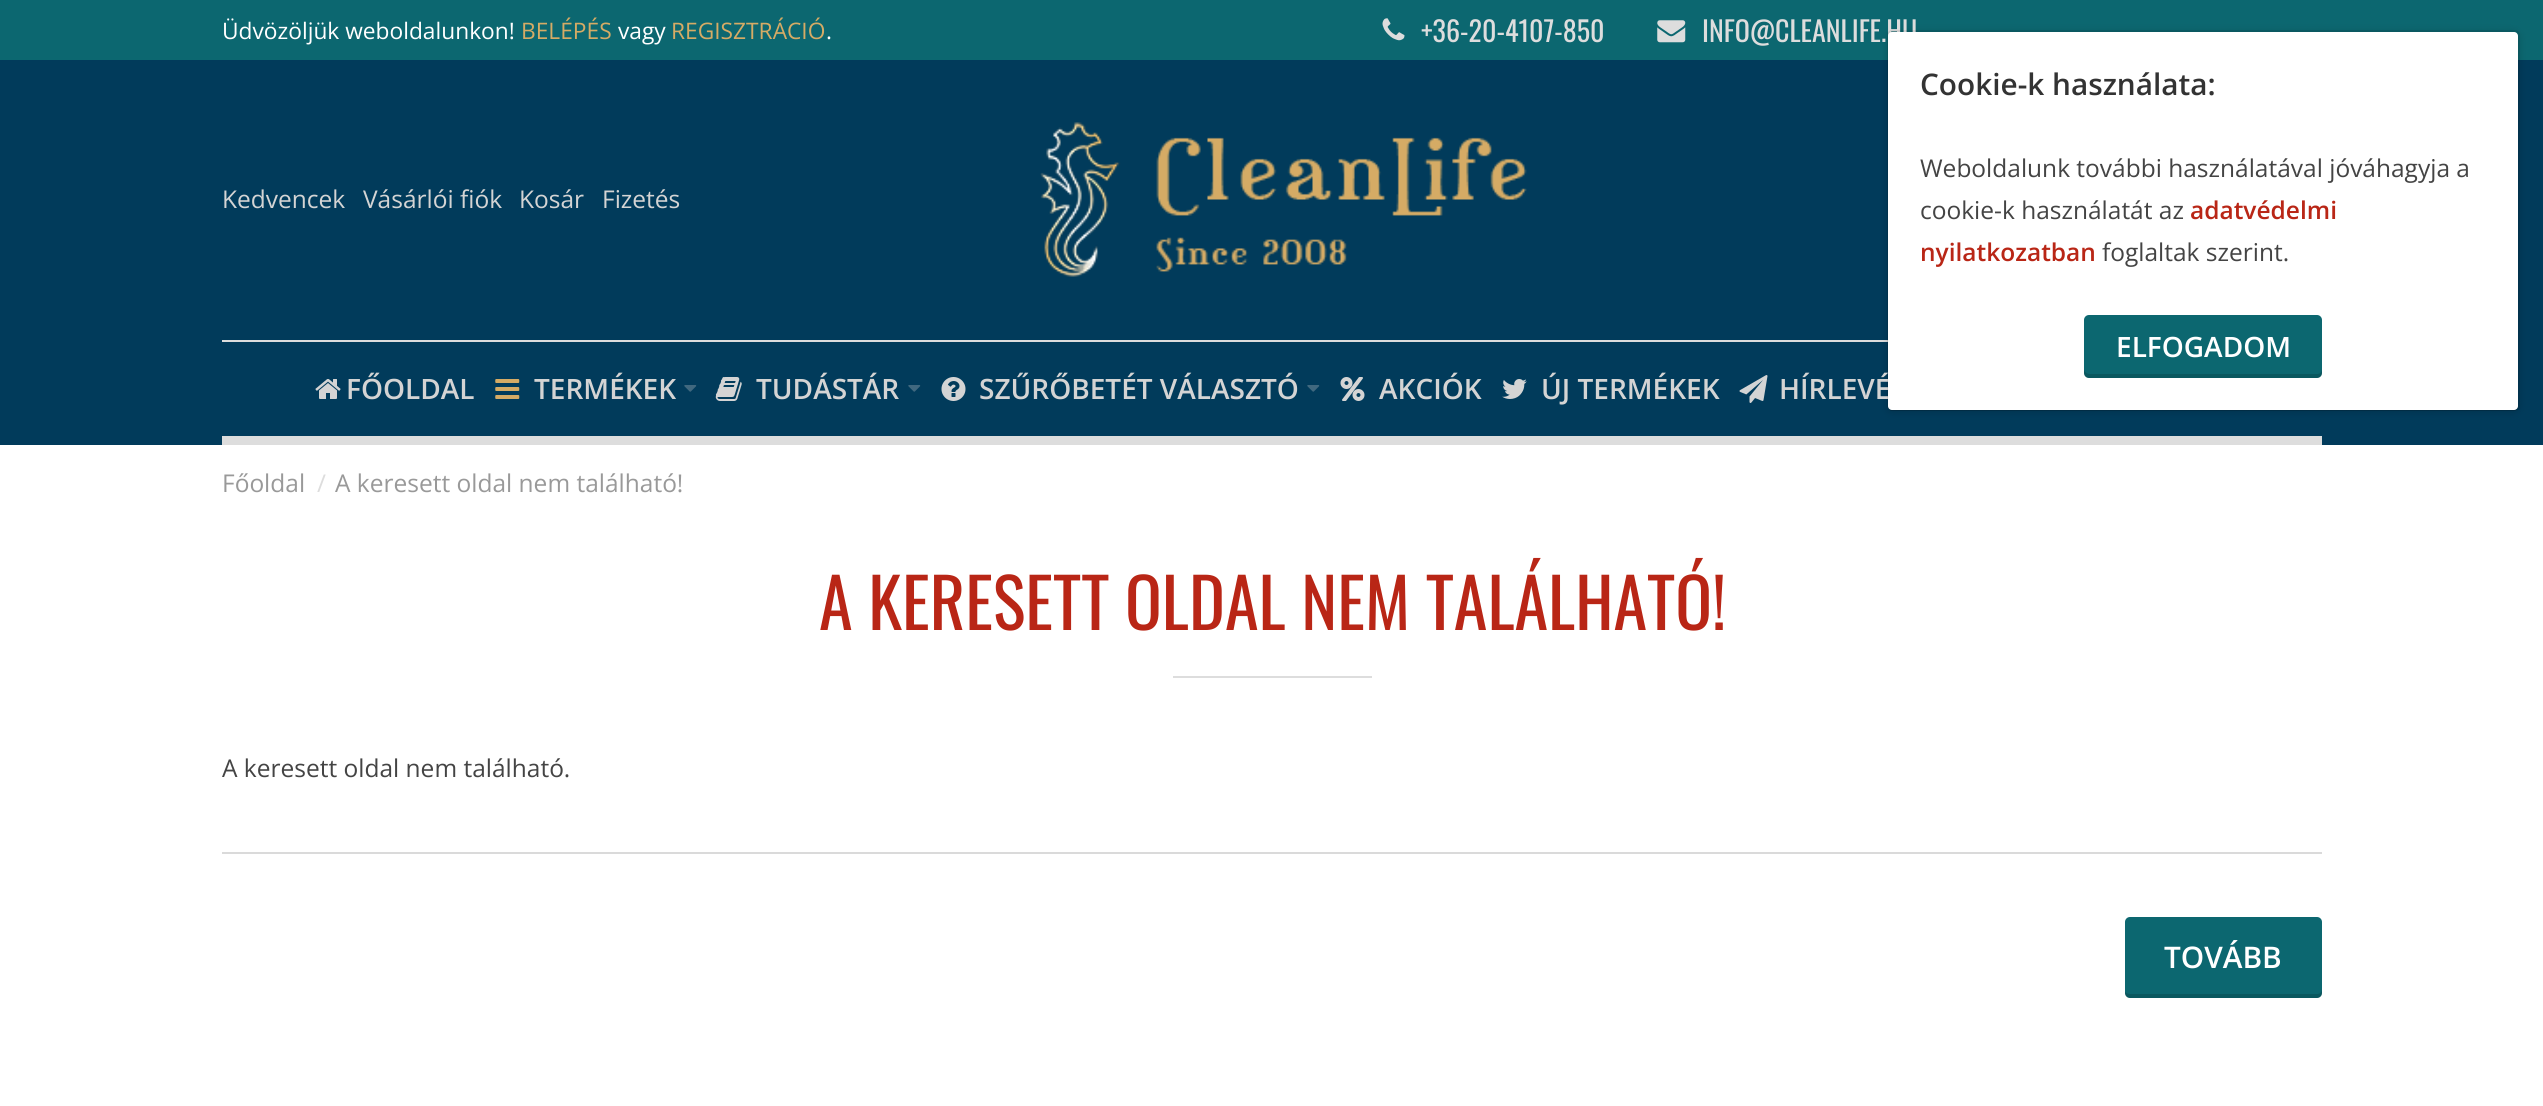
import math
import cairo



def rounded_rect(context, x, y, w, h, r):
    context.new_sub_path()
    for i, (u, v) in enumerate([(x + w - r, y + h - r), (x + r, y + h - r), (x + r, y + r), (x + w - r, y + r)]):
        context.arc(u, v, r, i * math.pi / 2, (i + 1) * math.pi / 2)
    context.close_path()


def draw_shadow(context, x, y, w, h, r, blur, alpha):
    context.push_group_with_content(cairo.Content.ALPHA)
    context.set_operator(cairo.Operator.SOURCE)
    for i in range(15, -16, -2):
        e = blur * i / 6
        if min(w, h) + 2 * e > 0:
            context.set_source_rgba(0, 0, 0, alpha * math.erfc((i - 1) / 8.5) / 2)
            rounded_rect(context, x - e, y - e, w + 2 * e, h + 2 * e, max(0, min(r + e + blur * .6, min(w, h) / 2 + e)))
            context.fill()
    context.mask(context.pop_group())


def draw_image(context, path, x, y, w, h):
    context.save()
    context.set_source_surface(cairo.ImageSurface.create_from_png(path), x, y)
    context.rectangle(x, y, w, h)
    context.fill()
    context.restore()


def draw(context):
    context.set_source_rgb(1, 1, 1)
    context.paint()
    context.set_source_rgb(1 / 255, 59 / 255, 91 / 255)
    context.rectangle(0, 60, 2543, 385)
    context.fill()
    context.set_source_rgb(12 / 255, 103 / 255, 112 / 255)
    context.rectangle(0, 0, 2543, 60)
    context.fill()
    draw_image(context, "images/1.png", 1382, 18, 23, 23)
    draw_image(context, "images/2.png", 1657, 20, 29, 23)
    draw_image(context, "images/3.png", 1040, 122, 487, 155)
    context.set_source_rgb(221 / 255, 221 / 255, 221 / 255)
    context.rectangle(222, 340, 1666, 2)
    context.fill()
    draw_image(context, "images/4.png", 315, 379, 26, 20)
    draw_image(context, "images/5.png", 495, 379, 25, 20)
    draw_image(context, "images/6.png", 684, 385, 13, 7)
    draw_image(context, "images/7.png", 715, 377, 27, 24)
    draw_image(context, "images/6.png", 908, 385, 13, 7)
    draw_image(context, "images/8.png", 941, 377, 25, 24)
    draw_image(context, "images/6.png", 1307, 385, 13, 7)
    draw_image(context, "images/9.png", 1340, 377, 25, 24)
    draw_image(context, "images/10.png", 1502, 379, 25, 20)
    draw_image(context, "images/11.png", 1739, 375, 29, 28)
    context.rectangle(222, 436, 2100, 9)
    context.fill()
    context.rectangle(1173, 676, 199, 2)
    context.fill()
    context.set_source_rgb(218 / 255, 218 / 255, 218 / 255)
    context.rectangle(222, 852, 2100, 2)
    context.fill()
    context.set_source_rgb(12 / 255, 103 / 255, 112 / 255)
    rounded_rect(context, 2125, 917, 197, 81, 5)
    context.fill()
    context.set_source_rgba(0, 0, 0, 0.15)
    context.new_path()
    context.move_to(2125, 992)
    context.line_to(2125, 993)
    context.curve_to(2125, 996, 2127, 998, 2130, 998)
    context.line_to(2317, 998)
    context.curve_to(2320, 998, 2322, 996, 2322, 993)
    context.line_to(2322, 989)
    context.curve_to(2322, 992, 2320, 994, 2317, 994)
    context.line_to(2130, 994)
    context.curve_to(2128, 994, 2126, 993, 2125, 992)
    context.close_path()
    context.fill()
    context.set_source_rgb(0, 0, 0)
    draw_shadow(context, 1888, 33, 630, 378, 4, 4.5, 0.2)
    context.select_font_face("Open Sans")
    context.set_font_size(22.75)
    context.set_source_rgb(1, 1, 1)
    context.move_to(222, 39)
    context.show_text("Üdvözöljük weboldalunkon!")
    context.set_source_rgb(213 / 255, 171 / 255, 101 / 255)
    context.move_to(521, 39)
    context.show_text("BELÉPÉS")
    context.set_source_rgb(1, 1, 1)
    context.move_to(618, 39)
    context.show_text("vagy")
    context.set_source_rgb(213 / 255, 171 / 255, 101 / 255)
    context.move_to(671, 39)
    context.show_text("REGISZTRÁCIÓ")
    context.set_source_rgb(1, 1, 1)
    context.move_to(826, 39)
    context.show_text(".")
    context.select_font_face("Oswald")
    context.set_font_size(28)
    context.set_source_rgb(221 / 255, 221 / 255, 221 / 255)
    context.move_to(1421, 42)
    context.show_text("+36-20-4107-850")
    context.move_to(1702, 42)
    context.show_text("INFO@CLEANLIFE.HU")
    context.select_font_face("Open Sans")
    context.set_font_size(24.5)
    context.set_source_rgb(212 / 255, 212 / 255, 212 / 255)
    context.move_to(222, 208)
    context.show_text("Kedvencek")
    context.move_to(363, 208)
    context.show_text("Vásárlói fiók")
    context.move_to(519, 208)
    context.show_text("Kosár")
    context.move_to(602, 208)
    context.show_text("Fizetés")
    context.select_font_face("Open Sans SemiBold")
    context.set_font_size(28)
    context.move_to(346, 399)
    context.show_text("FŐOLDAL")
    context.move_to(534, 399)
    context.show_text("TERMÉKEK")
    context.move_to(756, 399)
    context.show_text("TUDÁSTÁR")
    context.move_to(979, 399)
    context.show_text("SZŰRŐBETÉT VÁLASZTÓ")
    context.move_to(1379, 399)
    context.show_text("AKCIÓK")
    context.move_to(1541, 399)
    context.show_text("ÚJ TERMÉKEK")
    context.move_to(1779, 399)
    context.show_text("HÍRLEVÉ")
    context.select_font_face("Open Sans")
    context.set_font_size(24.5)
    context.set_source_rgb(153 / 255, 153 / 255, 153 / 255)
    context.move_to(222, 492)
    context.show_text("Főoldal")
    context.set_source_rgb(221 / 255, 221 / 255, 221 / 255)
    context.move_to(317, 492)
    context.show_text("/")
    context.set_source_rgb(153 / 255, 153 / 255, 153 / 255)
    context.move_to(335, 492)
    context.show_text("A keresett oldal nem található!")
    context.select_font_face("Oswald")
    context.set_font_size(68.25)
    context.set_source_rgb(185 / 255, 38 / 255, 22 / 255)
    context.move_to(819, 630)
    context.show_text("A KERESETT OLDAL NEM TALÁLHATÓ!")
    context.select_font_face("Open Sans")
    context.set_font_size(24.5)
    context.set_source_rgb(68 / 255, 68 / 255, 68 / 255)
    context.move_to(222, 777)
    context.show_text("A keresett oldal nem található.")
    context.select_font_face("Open Sans SemiBold")
    context.set_font_size(29.75)
    context.set_source_rgb(1, 1, 1)
    context.move_to(2164, 968)
    context.show_text("TOVÁBB")
    rounded_rect(context, 1888, 31, 631, 379, 4)
    context.set_source_rgba(0, 0, 0, 0.08)
    context.stroke()
    context.set_source_rgba(0, 0, 0, 0.1)
    context.new_path()
    context.move_to(1888, 36)
    context.line_to(1888, 407)
    context.curve_to(1888, 409, 1890, 411, 1892, 411)
    context.line_to(2514, 411)
    context.curve_to(2516, 411, 2518, 409, 2518, 407)
    context.curve_to(2517, 409, 2516, 410, 2515, 410)
    context.line_to(1892, 410)
    context.curve_to(1890, 410, 1888, 408, 1888, 406)
    context.close_path()
    context.fill()
    context.set_source_rgb(1, 1, 1)
    rounded_rect(context, 1888, 32, 630, 378, 4)
    context.fill()
    context.set_source_rgb(51 / 255, 51 / 255, 51 / 255)
    context.move_to(1920, 95)
    context.show_text("Cookie-k használata:")
    context.select_font_face("Open Sans")
    context.set_font_size(24.5)
    context.set_source_rgb(68 / 255, 68 / 255, 68 / 255)
    context.move_to(1920, 177)
    context.show_text("Weboldalunk további használatával jóváhagyja a")
    context.move_to(1920, 219)
    context.show_text("cookie-k használatát az")
    context.select_font_face("Open Sans SemiBold")
    context.set_source_rgb(185 / 255, 38 / 255, 22 / 255)
    context.move_to(2190, 219)
    context.show_text("adatvédelmi")
    context.move_to(1920, 261)
    context.show_text("nyilatkozatban")
    context.select_font_face("Open Sans")
    context.set_source_rgb(68 / 255, 68 / 255, 68 / 255)
    context.move_to(2102, 261)
    context.show_text("foglaltak szerint.")
    context.set_source_rgb(12 / 255, 103 / 255, 112 / 255)
    rounded_rect(context, 2084, 315, 238, 63, 5)
    context.fill()
    context.set_source_rgba(0, 0, 0, 0.15)
    context.new_path()
    context.move_to(2084, 369)
    context.line_to(2084, 373)
    context.curve_to(2084, 376, 2086, 378, 2089, 378)
    context.line_to(2317, 378)
    context.curve_to(2320, 378, 2322, 376, 2322, 373)
    context.line_to(2322, 369)
    context.curve_to(2322, 372, 2320, 374, 2317, 374)
    context.line_to(2090, 374)
    context.curve_to(2087, 374, 2084, 372, 2084, 369)
    context.close_path()
    context.fill()
    context.select_font_face("Open Sans SemiBold")
    context.set_font_size(28)
    context.set_source_rgb(1, 1, 1)
    context.move_to(2116, 357)
    context.show_text("ELFOGADOM")


surface = cairo.ImageSurface(cairo.Format.RGB24, 2543, 1106)
context = cairo.Context(surface)
options = cairo.FontOptions()
options.set_hint_metrics(cairo.HintMetrics.OFF)
options.set_hint_style(cairo.HintStyle.NONE)
context.set_font_options(options)
context.set_miter_limit(4)
draw(context)
surface.write_to_png("out.png")
